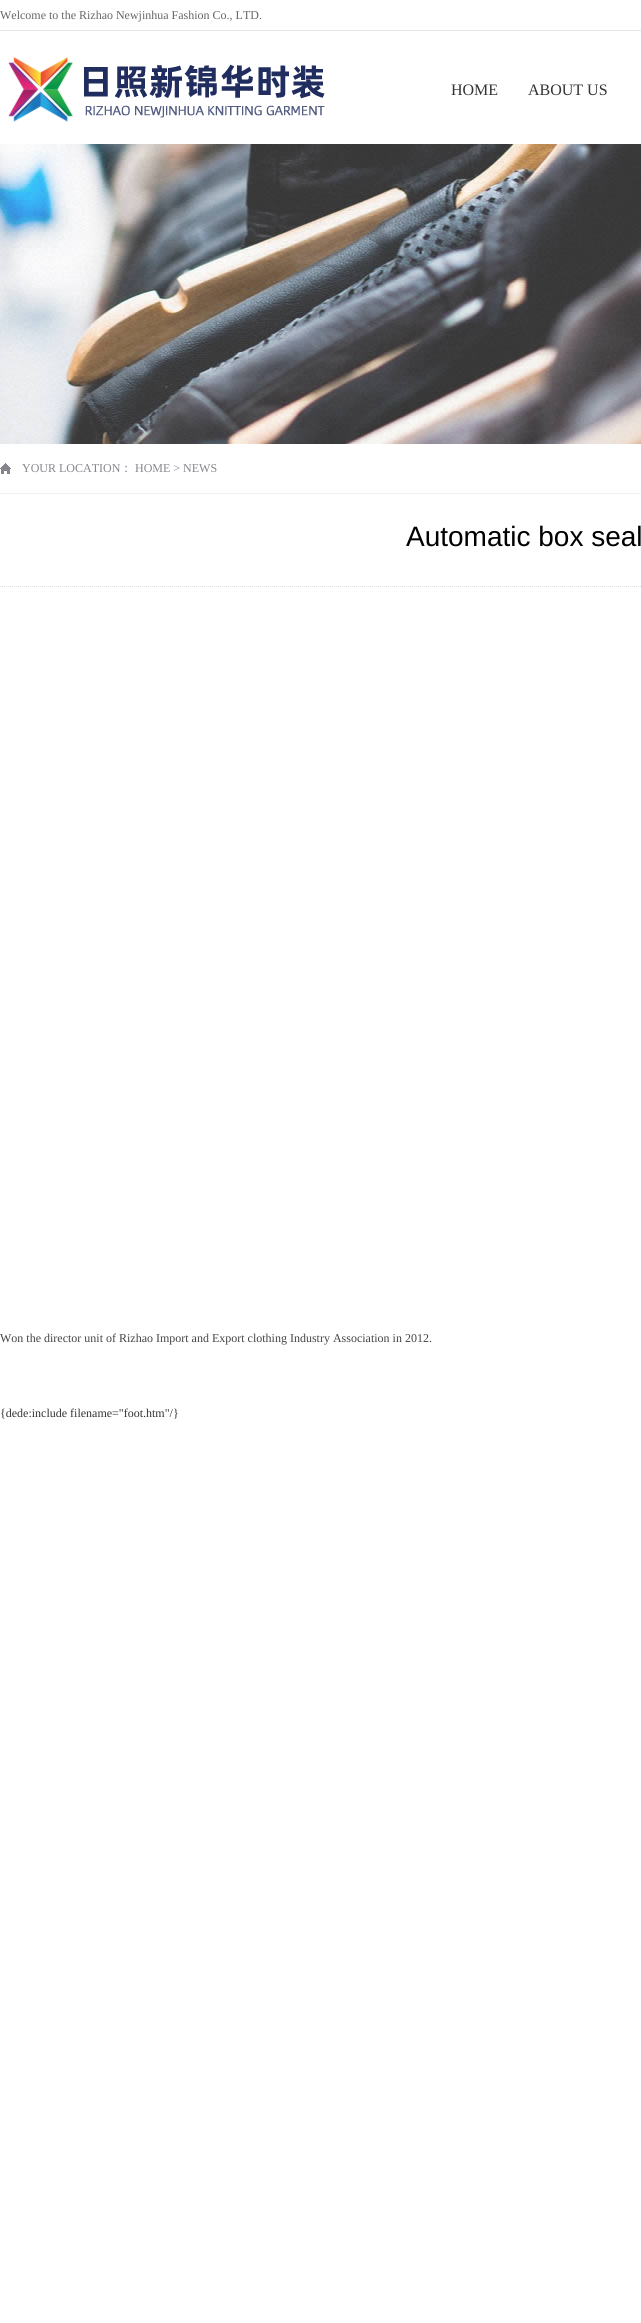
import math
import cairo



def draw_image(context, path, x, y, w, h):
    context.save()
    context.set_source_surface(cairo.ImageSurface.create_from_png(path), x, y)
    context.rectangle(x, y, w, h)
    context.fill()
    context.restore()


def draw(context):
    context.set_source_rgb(1, 1, 1)
    context.paint()
    context.set_source_rgb(229 / 255, 229 / 255, 229 / 255)
    context.rectangle(0, 30, 641, 1)
    context.fill()
    draw_image(context, "images/1.png", 8, 57, 317, 65)
    draw_image(context, "images/2.png", 0, 144, 641, 300)
    context.set_source_rgb(241 / 255, 241 / 255, 241 / 255)
    context.rectangle(0, 493, 641, 1)
    context.fill()
    draw_image(context, "images/3.png", 0, 463, 11, 11)
    context.new_path()
    context.move_to(0, 586.5)
    context.line_to(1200, 586.5)
    context.set_source_rgb(221 / 255, 221 / 255, 221 / 255)
    context.set_line_width(1)
    context.set_dash([1, 1])
    context.stroke()
    context.select_font_face("Liberation Serif")
    context.set_font_size(12)
    context.set_source_rgb(102 / 255, 102 / 255, 102 / 255)
    context.move_to(0, 19)
    context.show_text("Welcome to the Rizhao Newjinhua Fashion Co., LTD.")
    context.set_font_size(16)
    context.set_source_rgb(51 / 255, 51 / 255, 51 / 255)
    context.move_to(451, 95)
    context.show_text("HOME")
    context.move_to(528, 95)
    context.show_text("ABOUT US")
    context.set_font_size(12)
    context.set_source_rgb(136 / 255, 132 / 255, 139 / 255)
    context.move_to(22, 472)
    context.show_text("YOUR LOCATION")
    context.select_font_face("WenQuanYi Zen Hei Medium")
    context.move_to(120, 472)
    context.show_text("：")
    context.select_font_face("Liberation Serif")
    context.move_to(135, 472)
    context.show_text("HOME > NEWS")
    context.select_font_face("Liberation Sans")
    context.set_font_size(28)
    context.set_source_rgb(0, 0, 0)
    context.move_to(406, 546)
    context.show_text("Automatic box seal")
    context.select_font_face("Liberation Serif")
    context.set_font_size(12)
    context.set_source_rgb(68 / 255, 68 / 255, 68 / 255)
    context.move_to(0, 1342)
    context.show_text("Won the director unit of Rizhao Import and Export clothing Industry Association in 2012.")
    context.set_source_rgb(51 / 255, 51 / 255, 51 / 255)
    context.move_to(0, 1417)
    context.show_text("{dede:include filename=\"foot.htm\"/}")


surface = cairo.ImageSurface(cairo.Format.RGB24, 641, 2323)
context = cairo.Context(surface)
options = cairo.FontOptions()
options.set_hint_metrics(cairo.HintMetrics.OFF)
options.set_hint_style(cairo.HintStyle.NONE)
context.set_font_options(options)
context.set_miter_limit(4)
draw(context)
surface.write_to_png("out.png")
